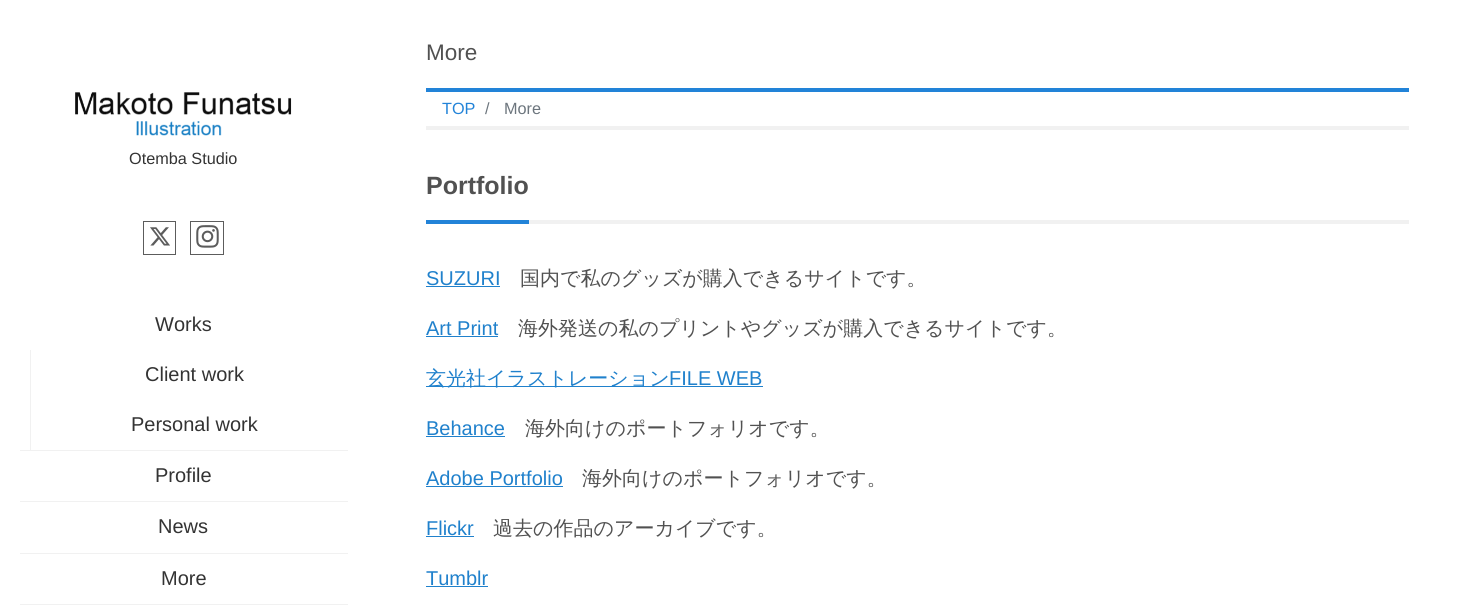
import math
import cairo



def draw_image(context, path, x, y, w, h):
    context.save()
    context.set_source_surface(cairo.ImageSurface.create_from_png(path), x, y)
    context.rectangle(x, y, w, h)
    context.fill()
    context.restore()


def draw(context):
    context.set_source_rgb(1, 1, 1)
    context.paint()
    draw_image(context, "images/1.png", 75, 92, 217, 44)
    context.rectangle(143.5, 221.5, 32, 33)
    context.set_source_rgb(92 / 255, 92 / 255, 92 / 255)
    context.set_line_width(1)
    context.stroke()
    draw_image(context, "images/2.png", 150, 227, 20, 19)
    context.rectangle(190.5, 221.5, 33, 33)
    context.stroke()
    draw_image(context, "images/3.png", 196, 225, 23, 23)
    context.set_source_rgb(241 / 255, 241 / 255, 241 / 255)
    context.rectangle(20, 450, 328, 1)
    context.fill()
    context.rectangle(30, 350, 1, 100)
    context.fill()
    context.rectangle(20, 501, 328, 1)
    context.fill()
    context.rectangle(20, 553, 328, 1)
    context.fill()
    context.rectangle(20, 604, 328, 1)
    context.fill()
    context.set_source_rgb(34 / 255, 131 / 255, 216 / 255)
    context.rectangle(426, 88, 983, 4)
    context.fill()
    context.set_source_rgb(241 / 255, 241 / 255, 241 / 255)
    context.rectangle(426, 126, 983, 4)
    context.fill()
    context.rectangle(529, 220, 880, 4)
    context.fill()
    context.set_source_rgb(34 / 255, 131 / 255, 216 / 255)
    context.rectangle(426, 220, 103, 4)
    context.fill()
    context.set_source_rgb(32 / 255, 129 / 255, 204 / 255)
    context.rectangle(426, 286, 74, 1)
    context.fill()
    context.rectangle(426, 336, 72, 1)
    context.fill()
    context.rectangle(426, 386, 337, 1)
    context.fill()
    context.rectangle(426, 436, 79, 1)
    context.fill()
    context.rectangle(426, 486, 137, 1)
    context.fill()
    context.rectangle(426, 536, 48, 1)
    context.fill()
    context.rectangle(426, 586, 62, 1)
    context.fill()
    context.select_font_face("Liberation Sans")
    context.set_font_size(16.25)
    context.set_source_rgb(51 / 255, 51 / 255, 51 / 255)
    context.move_to(129, 164)
    context.show_text("Otemba Studio")
    context.set_font_size(20)
    context.move_to(155, 331)
    context.show_text("Works")
    context.move_to(145, 381)
    context.show_text("Client work")
    context.move_to(131, 431)
    context.show_text("Personal work")
    context.move_to(155, 482)
    context.show_text("Profile")
    context.move_to(158, 533)
    context.show_text("News")
    context.move_to(161, 585)
    context.show_text("More")
    context.set_font_size(22.5)
    context.set_source_rgb(81 / 255, 81 / 255, 81 / 255)
    context.move_to(426, 60)
    context.show_text("More")
    context.set_font_size(16.25)
    context.set_source_rgb(34 / 255, 131 / 255, 216 / 255)
    context.move_to(442, 114)
    context.show_text("TOP")
    context.set_source_rgb(108 / 255, 117 / 255, 125 / 255)
    context.move_to(485, 114)
    context.show_text("/")
    context.move_to(504, 114)
    context.show_text("More")
    context.select_font_face("Liberation Sans", cairo.FontSlant.NORMAL, cairo.FontWeight.BOLD)
    context.set_font_size(25)
    context.set_source_rgb(81 / 255, 81 / 255, 81 / 255)
    context.move_to(426, 194)
    context.show_text("Portfolio")
    context.select_font_face("Liberation Sans")
    context.set_font_size(20)
    context.set_source_rgb(32 / 255, 129 / 255, 204 / 255)
    context.move_to(426, 285)
    context.show_text("SUZURI")
    context.select_font_face("WenQuanYi Zen Hei Medium")
    context.set_source_rgb(81 / 255, 81 / 255, 81 / 255)
    context.move_to(520, 285)
    context.show_text("国内で私のグッズが購入できるサイトです。")
    context.select_font_face("Liberation Sans")
    context.set_source_rgb(32 / 255, 129 / 255, 204 / 255)
    context.move_to(426, 335)
    context.show_text("Art Print")
    context.select_font_face("WenQuanYi Zen Hei Medium")
    context.set_source_rgb(81 / 255, 81 / 255, 81 / 255)
    context.move_to(518, 335)
    context.show_text("海外発送の私のプリントやグッズが購入できるサイトです。")
    context.set_source_rgb(32 / 255, 129 / 255, 204 / 255)
    context.move_to(426, 385)
    context.show_text("玄光社イラストレーション")
    context.select_font_face("Liberation Sans")
    context.move_to(669, 385)
    context.show_text("FILE WEB")
    context.move_to(426, 435)
    context.show_text("Behance")
    context.select_font_face("WenQuanYi Zen Hei Medium")
    context.set_source_rgb(81 / 255, 81 / 255, 81 / 255)
    context.move_to(525, 435)
    context.show_text("海外向けのポートフォリオです。")
    context.select_font_face("Liberation Sans")
    context.set_source_rgb(32 / 255, 129 / 255, 204 / 255)
    context.move_to(426, 485)
    context.show_text("Adobe Portfolio")
    context.select_font_face("WenQuanYi Zen Hei Medium")
    context.set_source_rgb(81 / 255, 81 / 255, 81 / 255)
    context.move_to(582, 485)
    context.show_text("海外向けのポートフォリオです。")
    context.select_font_face("Liberation Sans")
    context.set_source_rgb(32 / 255, 129 / 255, 204 / 255)
    context.move_to(426, 535)
    context.show_text("Flickr")
    context.select_font_face("WenQuanYi Zen Hei Medium")
    context.set_source_rgb(81 / 255, 81 / 255, 81 / 255)
    context.move_to(493, 535)
    context.show_text("過去の作品のアーカイブです。")
    context.select_font_face("Liberation Sans")
    context.set_source_rgb(32 / 255, 129 / 255, 204 / 255)
    context.move_to(426, 585)
    context.show_text("Tumblr")


surface = cairo.ImageSurface(cairo.Format.RGB24, 1467, 610)
context = cairo.Context(surface)
options = cairo.FontOptions()
options.set_hint_metrics(cairo.HintMetrics.OFF)
options.set_hint_style(cairo.HintStyle.NONE)
context.set_font_options(options)
context.set_miter_limit(4)
draw(context)
surface.write_to_png("out.png")
